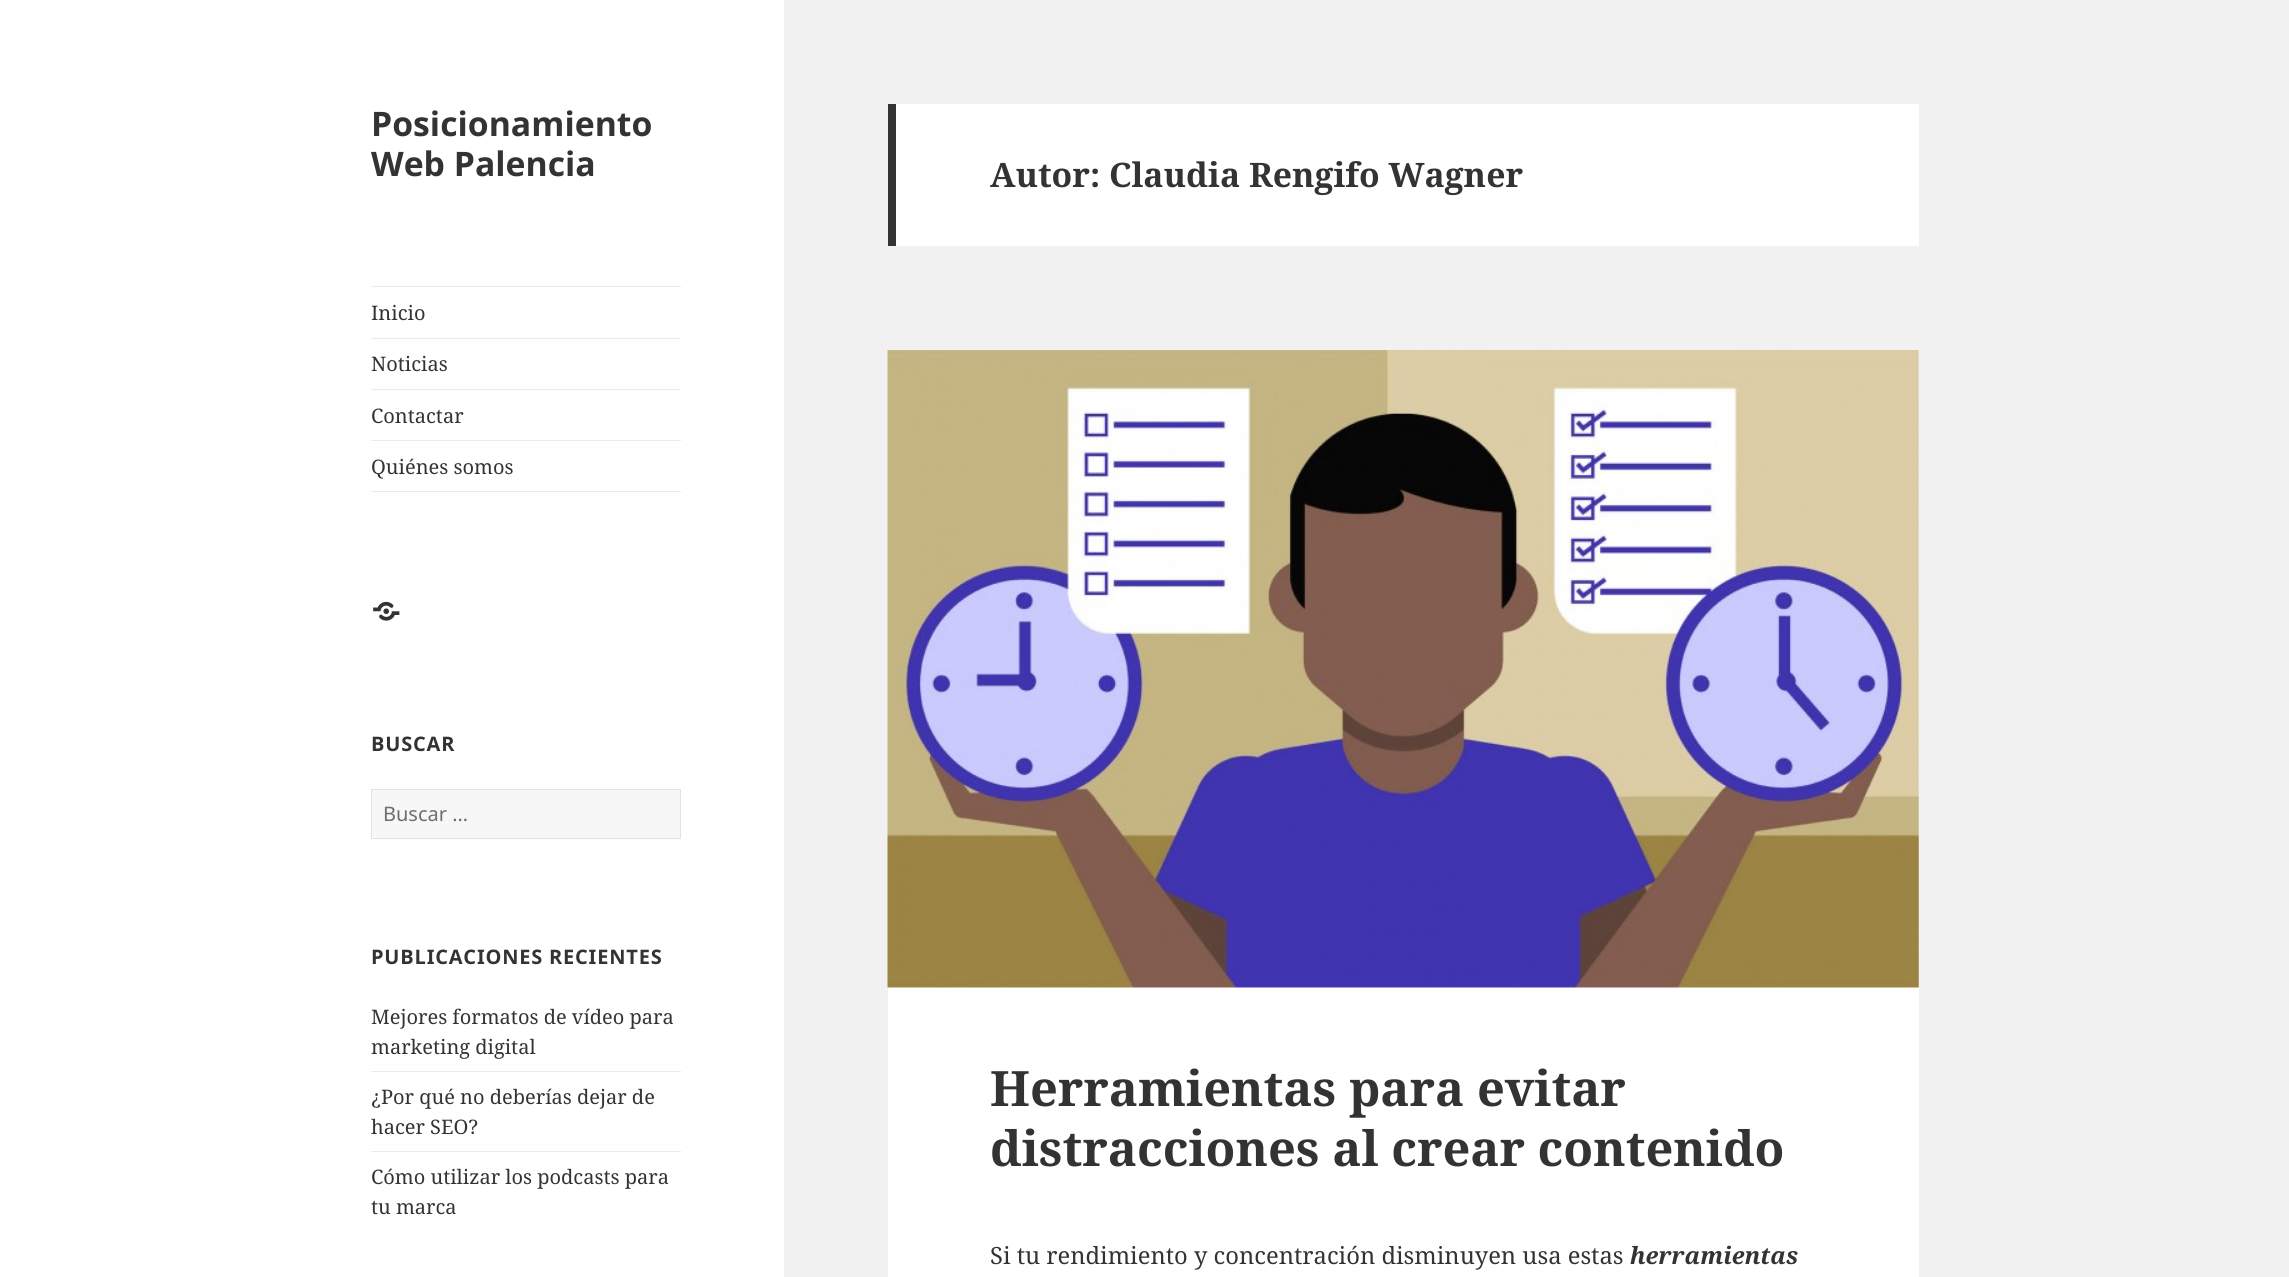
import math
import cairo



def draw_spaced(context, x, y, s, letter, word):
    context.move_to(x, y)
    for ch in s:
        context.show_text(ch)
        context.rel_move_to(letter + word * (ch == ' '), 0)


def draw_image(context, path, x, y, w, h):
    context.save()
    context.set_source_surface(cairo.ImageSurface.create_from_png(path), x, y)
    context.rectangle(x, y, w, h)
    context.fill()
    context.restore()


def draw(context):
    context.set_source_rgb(241 / 255, 241 / 255, 241 / 255)
    context.paint()
    context.set_source_rgb(1, 1, 1)
    context.rectangle(0, 0, 784, 1277)
    context.fill()
    context.set_source_rgb(235 / 255, 235 / 255, 235 / 255)
    context.rectangle(371, 286, 310, 1)
    context.fill()
    context.rectangle(371, 491, 310, 1)
    context.fill()
    context.rectangle(371, 338, 310, 1)
    context.fill()
    context.rectangle(371, 389, 310, 1)
    context.fill()
    context.rectangle(371, 440, 310, 1)
    context.fill()
    draw_image(context, "images/1.png", 373, 601, 27, 20)
    context.set_source_rgb(247 / 255, 247 / 255, 247 / 255)
    context.rectangle(371.5, 789.5, 309, 49)
    context.fill_preserve()
    context.set_source_rgb(227 / 255, 227 / 255, 227 / 255)
    context.set_line_width(1)
    context.stroke()
    context.set_source_rgb(235 / 255, 235 / 255, 235 / 255)
    context.rectangle(371, 1071, 310, 1)
    context.fill()
    context.rectangle(371, 1151, 310, 1)
    context.fill()
    context.set_source_rgb(1, 1, 1)
    context.rectangle(896, 104, 1023, 142)
    context.fill()
    context.set_source_rgb(51 / 255, 51 / 255, 51 / 255)
    context.rectangle(888, 104, 8, 142)
    context.fill()
    context.set_source_rgb(1, 1, 1)
    context.rectangle(888, 350, 1031, 927)
    context.fill()
    draw_image(context, "images/2.png", 887, 350, 1032, 638)
    context.select_font_face("Noto Sans", cairo.FontSlant.NORMAL, cairo.FontWeight.BOLD)
    context.set_font_size(33.75)
    context.set_source_rgb(51 / 255, 51 / 255, 51 / 255)
    context.move_to(371, 136)
    context.show_text("Posicionamiento")
    context.move_to(371, 176)
    context.show_text("Web Palencia")
    context.select_font_face("Noto Serif")
    context.set_font_size(20)
    context.move_to(371, 320)
    context.show_text("Inicio")
    context.move_to(371, 371)
    context.show_text("Noticias")
    context.move_to(371, 423)
    context.show_text("Contactar")
    context.move_to(371, 474)
    context.show_text("Quiénes somos")
    context.select_font_face("Noto Sans", cairo.FontSlant.NORMAL, cairo.FontWeight.BOLD)
    draw_spaced(context, 371, 751, "BUSCAR", 0.8, 0)
    context.select_font_face("Noto Sans")
    context.set_source_rgb(110 / 255, 110 / 255, 110 / 255)
    context.move_to(383, 821)
    context.show_text("Buscar …")
    context.select_font_face("Noto Sans", cairo.FontSlant.NORMAL, cairo.FontWeight.BOLD)
    context.set_source_rgb(51 / 255, 51 / 255, 51 / 255)
    draw_spaced(context, 371, 964, "PUBLICACIONES RECIENTES", 0.8, 0)
    context.select_font_face("Noto Serif")
    context.move_to(371, 1024)
    context.show_text("Mejores formatos de vídeo para")
    context.move_to(371, 1054)
    context.show_text("marketing digital")
    context.move_to(371, 1104)
    context.show_text("¿Por qué no deberías dejar de")
    context.move_to(371, 1134)
    context.show_text("hacer SEO?")
    context.move_to(371, 1184)
    context.show_text("Cómo utilizar los podcasts para")
    context.move_to(371, 1214)
    context.show_text("tu marca")
    context.select_font_face("Noto Serif", cairo.FontSlant.NORMAL, cairo.FontWeight.BOLD)
    context.set_font_size(33.75)
    context.move_to(990, 187)
    context.show_text("Autor: Claudia Rengifo Wagner")
    context.set_font_size(48.75)
    context.move_to(990, 1106)
    context.show_text("Herramientas para evitar")
    context.move_to(990, 1166)
    context.show_text("distracciones al crear contenido")
    context.select_font_face("Noto Serif")
    context.set_font_size(23.75)
    context.move_to(990, 1264)
    context.show_text("Si tu rendimiento y concentración disminuyen usa estas")
    context.select_font_face("Noto Serif", cairo.FontSlant.ITALIC, cairo.FontWeight.BOLD)
    context.move_to(1630, 1264)
    context.show_text("herramientas")


surface = cairo.ImageSurface(cairo.Format.RGB24, 2289, 1277)
context = cairo.Context(surface)
options = cairo.FontOptions()
options.set_hint_metrics(cairo.HintMetrics.OFF)
options.set_hint_style(cairo.HintStyle.NONE)
context.set_font_options(options)
context.set_miter_limit(4)
draw(context)
surface.write_to_png("out.png")
